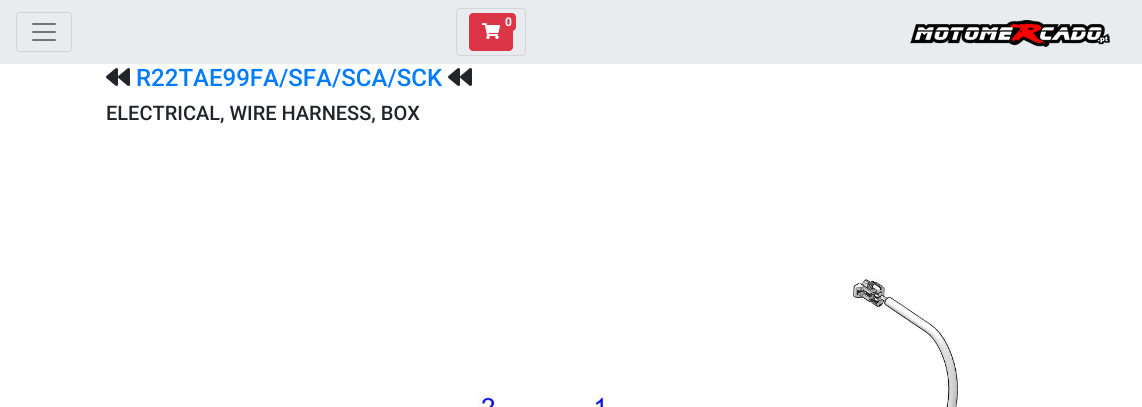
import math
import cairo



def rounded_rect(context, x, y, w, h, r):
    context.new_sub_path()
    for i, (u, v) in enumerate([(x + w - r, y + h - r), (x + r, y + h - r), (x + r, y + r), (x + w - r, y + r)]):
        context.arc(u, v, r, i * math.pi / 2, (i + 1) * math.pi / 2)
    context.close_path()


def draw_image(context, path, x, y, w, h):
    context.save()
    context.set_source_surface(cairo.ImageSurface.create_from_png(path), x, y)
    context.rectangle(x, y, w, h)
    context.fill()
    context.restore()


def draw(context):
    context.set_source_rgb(1, 1, 1)
    context.paint()
    context.set_source_rgb(233 / 255, 236 / 255, 239 / 255)
    context.rectangle(0, 0, 1142, 64)
    context.fill()
    rounded_rect(context, 16.5, 12.5, 55, 39, 3.5)
    context.set_source_rgb(210 / 255, 212 / 255, 215 / 255)
    context.set_line_width(1)
    context.stroke()
    draw_image(context, "images/1.png", 32, 23, 24, 18)
    rounded_rect(context, 456.5, 8.5, 69, 47, 3.5)
    context.stroke()
    context.set_source_rgb(220 / 255, 53 / 255, 69 / 255)
    rounded_rect(context, 469.5, 13.5, 43, 37, 3.5)
    context.fill_preserve()
    context.stroke()
    rounded_rect(context, 500, 13, 16, 18, 4)
    context.fill()
    draw_image(context, "images/2.png", 482, 23, 18, 16)
    draw_image(context, "images/3.png", 910, 20, 200, 27)
    draw_image(context, "images/4.png", 106, 68, 24, 18)
    draw_image(context, "images/4.png", 448, 68, 24, 18)
    draw_image(context, "images/5.png", 478, 277, 482, 130)
    context.select_font_face("Roboto", cairo.FontSlant.NORMAL, cairo.FontWeight.BOLD)
    context.set_font_size(12)
    context.set_source_rgb(1, 1, 1)
    context.move_to(505, 26)
    context.show_text("0")
    context.select_font_face("Roboto Medium")
    context.set_font_size(24)
    context.set_source_rgb(0, 123 / 255, 1)
    context.move_to(136, 86)
    context.show_text("R22TAE99FA/SFA/SCA/SCK")
    context.set_font_size(20)
    context.set_source_rgb(33 / 255, 37 / 255, 41 / 255)
    context.move_to(106, 120)
    context.show_text("ELECTRICAL, WIRE HARNESS, BOX")


surface = cairo.ImageSurface(cairo.Format.RGB24, 1142, 407)
context = cairo.Context(surface)
options = cairo.FontOptions()
options.set_hint_metrics(cairo.HintMetrics.OFF)
options.set_hint_style(cairo.HintStyle.NONE)
context.set_font_options(options)
context.set_miter_limit(4)
draw(context)
surface.write_to_png("out.png")
